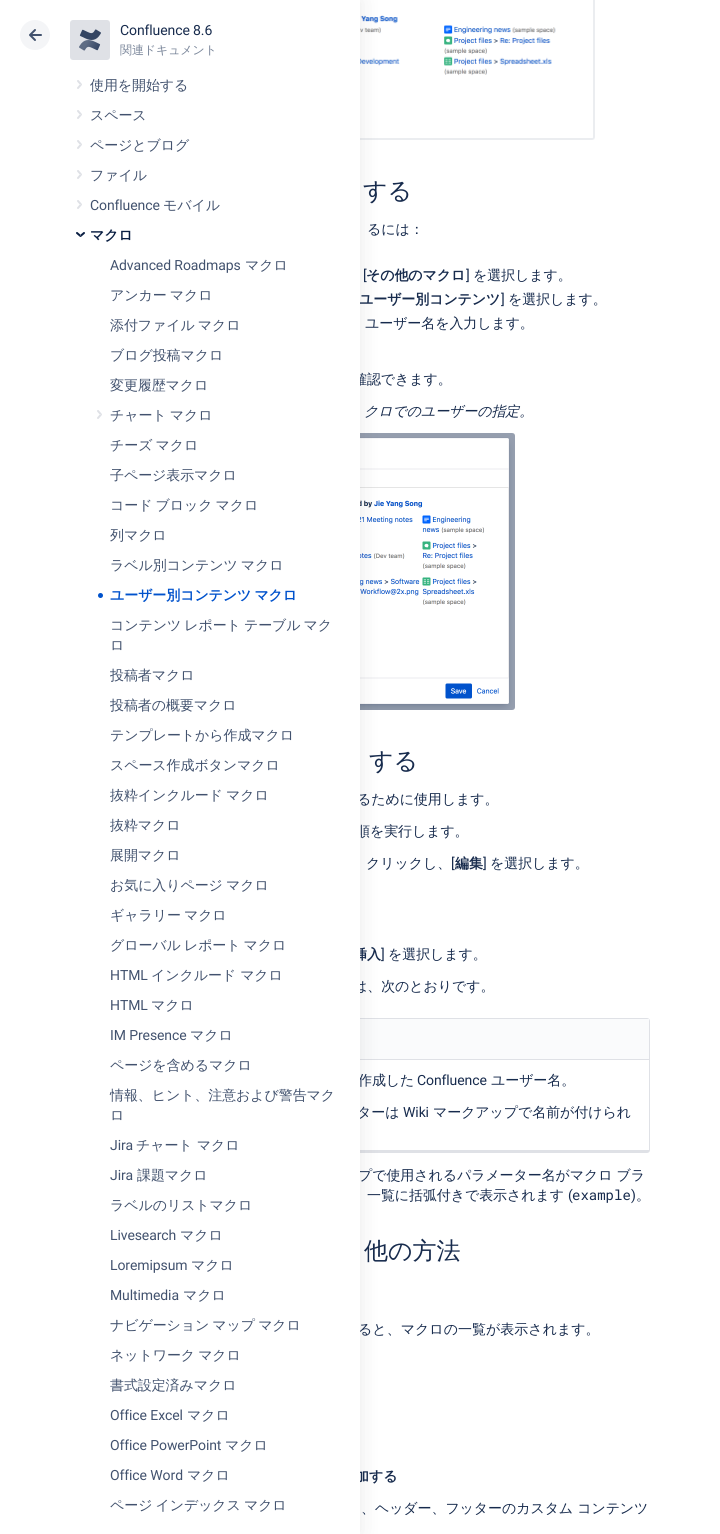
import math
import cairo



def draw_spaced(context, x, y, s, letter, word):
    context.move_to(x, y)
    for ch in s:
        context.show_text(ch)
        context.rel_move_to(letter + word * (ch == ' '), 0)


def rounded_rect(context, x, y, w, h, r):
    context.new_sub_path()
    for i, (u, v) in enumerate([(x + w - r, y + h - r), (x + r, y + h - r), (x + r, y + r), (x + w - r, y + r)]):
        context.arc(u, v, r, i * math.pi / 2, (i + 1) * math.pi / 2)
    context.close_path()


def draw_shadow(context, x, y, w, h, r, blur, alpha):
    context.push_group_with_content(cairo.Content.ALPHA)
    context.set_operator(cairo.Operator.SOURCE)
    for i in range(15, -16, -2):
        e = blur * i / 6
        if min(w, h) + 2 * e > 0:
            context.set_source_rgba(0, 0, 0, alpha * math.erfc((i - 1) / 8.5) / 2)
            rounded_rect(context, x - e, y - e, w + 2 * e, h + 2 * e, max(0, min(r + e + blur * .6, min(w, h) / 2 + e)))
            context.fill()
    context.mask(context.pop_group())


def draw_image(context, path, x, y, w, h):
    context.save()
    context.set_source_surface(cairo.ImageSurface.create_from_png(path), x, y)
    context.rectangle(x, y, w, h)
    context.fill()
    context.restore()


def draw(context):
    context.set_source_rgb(1, 1, 1)
    context.paint()
    context.new_path()
    context.move_to(593.5, -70.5)
    context.line_to(594, -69)
    context.line_to(594, 137)
    context.line_to(593.5, 138.5)
    context.line_to(592, 139)
    context.line_to(73, 139)
    context.line_to(71.5, 138.5)
    context.set_source_rgb(235 / 255, 237 / 255, 240 / 255)
    context.stroke()
    draw_image(context, "images/4.png", 360, 0, 233, 138)
    draw_image(context, "images/5.png", 360, 433, 155, 277)
    rounded_rect(context, 70.5, 1018.5, 579, 134, 2.5)
    context.set_source_rgb(223 / 255, 225 / 255, 230 / 255)
    context.set_line_width(1)
    context.stroke()
    context.rectangle(360, 1150, 289, 2)
    context.fill()
    context.set_source_rgb(250 / 255, 251 / 255, 252 / 255)
    context.rectangle(360, 1019, 289, 40)
    context.fill()
    context.set_source_rgb(223 / 255, 225 / 255, 230 / 255)
    context.rectangle(360, 1059, 289, 1)
    context.fill()
    context.set_source_rgb(22 / 255, 22 / 255, 22 / 255)
    draw_shadow(context, 0, 0, 360, 1534, 0, 10, 0.1)
    context.select_font_face("WenQuanYi Zen Hei Medium")
    context.set_font_size(24)
    context.set_source_rgb(23 / 255, 43 / 255, 77 / 255)
    context.move_to(363, 199)
    context.show_text("する")
    context.set_font_size(14)
    draw_spaced(context, 367, 234, "るには：", -0.1, 0)
    context.select_font_face("Roboto")
    draw_spaced(context, 363, 280, "[", -0.1, 0)
    context.select_font_face("WenQuanYi Zen Hei", cairo.FontSlant.NORMAL, cairo.FontWeight.BOLD)
    draw_spaced(context, 366, 280, "その他のマクロ", -0.1, 0)
    context.select_font_face("Roboto")
    draw_spaced(context, 466, 280, "]", -0.1, 0)
    context.select_font_face("WenQuanYi Zen Hei Medium")
    draw_spaced(context, 473, 280, "を選択します。", -0.1, 0)
    context.select_font_face("WenQuanYi Zen Hei", cairo.FontSlant.NORMAL, cairo.FontWeight.BOLD)
    draw_spaced(context, 359, 304, "ユーザー別コンテンツ", -0.1, 0)
    context.select_font_face("Roboto")
    draw_spaced(context, 501, 304, "]", -0.1, 0)
    context.select_font_face("WenQuanYi Zen Hei Medium")
    draw_spaced(context, 508, 304, "を選択します。", -0.1, 0)
    draw_spaced(context, 365, 328, "ユーザー名を入力します。", -0.1, 0)
    draw_spaced(context, 353, 384, "確認できます。", -0.1, 0)
    context.select_font_face("WenQuanYi Zen Hei Medium", cairo.FontSlant.ITALIC)
    draw_spaced(context, 364, 416, "クロでのユーザーの指定。", -0.1, 0)
    context.select_font_face("WenQuanYi Zen Hei Medium")
    context.set_font_size(24)
    draw_spaced(context, 369, 769, "する", 0, -1)
    context.set_font_size(14)
    draw_spaced(context, 357, 804, "るために使用します。", -0.1, -1)
    draw_spaced(context, 356, 836, "順を実行します。", -0.1, -1)
    draw_spaced(context, 366, 868, "クリックし、", -0.1, 0)
    context.select_font_face("Roboto")
    draw_spaced(context, 451, 868, "[", -0.1, 0)
    context.select_font_face("WenQuanYi Zen Hei", cairo.FontSlant.NORMAL, cairo.FontWeight.BOLD)
    draw_spaced(context, 455, 868, "編集", -0.1, 0)
    context.select_font_face("Roboto")
    draw_spaced(context, 483, 868, "]", -0.1, 0)
    context.select_font_face("WenQuanYi Zen Hei Medium")
    draw_spaced(context, 490, 868, "を選択します。", -0.1, 0)
    context.select_font_face("WenQuanYi Zen Hei", cairo.FontSlant.NORMAL, cairo.FontWeight.BOLD)
    draw_spaced(context, 353, 959, "挿入", -0.1, 0)
    context.select_font_face("Roboto")
    draw_spaced(context, 381, 959, "]", -0.1, 0)
    context.select_font_face("WenQuanYi Zen Hei Medium")
    draw_spaced(context, 388, 959, "を選択します。", -0.1, 0)
    draw_spaced(context, 353, 991, "は、次のとおりです。", -0.1, 0)
    draw_spaced(context, 358, 1085, "作成した", -0.1, 0)
    context.select_font_face("Roboto")
    draw_spaced(context, 417, 1085, "Confluence", -0.1, 0)
    context.select_font_face("WenQuanYi Zen Hei Medium")
    draw_spaced(context, 491, 1085, "ユーザー名。", -0.1, 0)
    draw_spaced(context, 357, 1117, "ターは", -0.1, 0)
    context.select_font_face("Roboto")
    draw_spaced(context, 403, 1117, "Wiki", -0.1, 0)
    context.select_font_face("WenQuanYi Zen Hei Medium")
    draw_spaced(context, 433, 1117, "マークアップで名前が付けられ", -0.1, 0)
    draw_spaced(context, 358, 1180, "プで使用されるパラメーター名がマクロ ブラ", -0.1, 0)
    draw_spaced(context, 367, 1200, "一覧に括弧付きで表示されます", -0.1, 0)
    context.select_font_face("Roboto")
    draw_spaced(context, 568, 1200, "(", -0.1, 0)
    context.select_font_face("Roboto Mono")
    context.move_to(572, 1200)
    context.show_text("example")
    context.select_font_face("Roboto")
    draw_spaced(context, 631, 1200, ")", -0.1, 0)
    context.select_font_face("WenQuanYi Zen Hei Medium")
    draw_spaced(context, 636, 1200, "。", -0.1, 0)
    context.set_font_size(24)
    context.move_to(364, 1259)
    context.show_text("他の方法")
    context.set_font_size(14)
    context.move_to(358, 1334)
    context.show_text("ると、マクロの一覧が表示されます。")
    context.select_font_face("WenQuanYi Zen Hei", cairo.FontSlant.NORMAL, cairo.FontWeight.BOLD)
    context.move_to(355, 1481)
    context.show_text("加する")
    context.set_source_rgb(1, 1, 1)
    context.rectangle(0, 0, 360, 1534)
    context.fill()
    context.select_font_face("WenQuanYi Zen Hei Medium")
    context.set_source_rgb(66 / 255, 82 / 255, 110 / 255)
    draw_spaced(context, 110, 1510, "ページ インデックス マクロ", -0.1, -1)
    draw_spaced(context, 187, 1480, "マクロ", -0.1, 0)
    context.select_font_face("Roboto")
    draw_spaced(context, 110, 1480, "Office Word", -0.1, 0)
    context.select_font_face("WenQuanYi Zen Hei Medium")
    draw_spaced(context, 225, 1450, "マクロ", -0.1, 0)
    context.select_font_face("Roboto")
    draw_spaced(context, 110, 1450, "Office PowerPoint", -0.1, 0)
    context.select_font_face("WenQuanYi Zen Hei Medium")
    draw_spaced(context, 187, 1420, "マクロ", -0.1, 0)
    context.select_font_face("Roboto")
    draw_spaced(context, 110, 1420, "Office Excel", -0.1, 0)
    context.select_font_face("WenQuanYi Zen Hei Medium")
    draw_spaced(context, 110, 1390, "書式設定済みマクロ", -0.1, 0)
    draw_spaced(context, 110, 1360, "ネットワーク マクロ", -0.1, -1)
    draw_spaced(context, 110, 1330, "ナビゲーション マップ マクロ", -0.1, -1)
    draw_spaced(context, 183, 1300, "マクロ", -0.1, 0)
    context.select_font_face("Roboto")
    draw_spaced(context, 110, 1300, "Multimedia", -0.1, 0)
    context.select_font_face("WenQuanYi Zen Hei Medium")
    draw_spaced(context, 191, 1270, "マクロ", -0.1, 0)
    context.select_font_face("Roboto")
    draw_spaced(context, 110, 1270, "Loremipsum", -0.1, 0)
    context.select_font_face("WenQuanYi Zen Hei Medium")
    draw_spaced(context, 180, 1240, "マクロ", -0.1, 0)
    context.select_font_face("Roboto")
    draw_spaced(context, 110, 1240, "Livesearch", -0.1, 0)
    context.select_font_face("WenQuanYi Zen Hei Medium")
    draw_spaced(context, 110, 1210, "ラベルのリストマクロ", -0.1, 0)
    draw_spaced(context, 137, 1180, "課題マクロ", -0.1, 0)
    context.select_font_face("Roboto")
    draw_spaced(context, 110, 1180, "Jira", -0.1, 0)
    context.select_font_face("WenQuanYi Zen Hei Medium")
    draw_spaced(context, 136, 1150, "チャート マクロ", -0.1, 0)
    context.select_font_face("Roboto")
    draw_spaced(context, 110, 1150, "Jira", -0.1, 0)
    context.select_font_face("WenQuanYi Zen Hei Medium")
    draw_spaced(context, 110, 1120, "ロ", -0.1, 0)
    draw_spaced(context, 110, 1100, "情報、ヒント、注意および警告マク", -0.1, 0)
    draw_spaced(context, 110, 1070, "ページを含めるマクロ", -0.1, 0)
    draw_spaced(context, 190, 1040, "マクロ", -0.1, 0)
    context.select_font_face("Roboto")
    draw_spaced(context, 110, 1040, "IM Presence", -0.1, 0)
    context.select_font_face("WenQuanYi Zen Hei Medium")
    draw_spaced(context, 151, 1010, "マクロ", -0.1, 0)
    context.select_font_face("Roboto")
    draw_spaced(context, 110, 1010, "HTML", -0.1, 0)
    context.select_font_face("WenQuanYi Zen Hei Medium")
    draw_spaced(context, 151, 980, "インクルード マクロ", -0.1, 0)
    context.select_font_face("Roboto")
    draw_spaced(context, 110, 980, "HTML", -0.1, 0)
    context.select_font_face("WenQuanYi Zen Hei Medium")
    draw_spaced(context, 110, 950, "グローバル レポート マクロ", -0.1, -1)
    draw_spaced(context, 110, 920, "ギャラリー マクロ", -0.1, -1)
    draw_spaced(context, 110, 890, "お気に入りページ マクロ", -0.1, -1)
    draw_spaced(context, 110, 860, "展開マクロ", -0.1, 0)
    draw_spaced(context, 110, 830, "抜粋マクロ", -0.1, 0)
    draw_spaced(context, 110, 800, "抜粋インクルード マクロ", -0.1, -1)
    draw_spaced(context, 110, 770, "スペース作成ボタンマクロ", -0.1, 0)
    draw_spaced(context, 110, 740, "テンプレートから作成マクロ", -0.1, 0)
    draw_spaced(context, 110, 710, "投稿者の概要マクロ", -0.1, 0)
    draw_spaced(context, 110, 680, "投稿者マクロ", -0.1, 0)
    draw_spaced(context, 110, 650, "ロ", -0.1, 0)
    draw_spaced(context, 110, 630, "コンテンツ レポート テーブル マク", -0.1, -1)
    context.set_source_rgb(0, 82 / 255, 204 / 255)
    context.new_path()
    context.arc(100.5, 595.5, 2.5, 0, 2 * math.pi)
    context.fill()
    context.select_font_face("WenQuanYi Zen Hei", cairo.FontSlant.NORMAL, cairo.FontWeight.BOLD)
    draw_spaced(context, 110, 600, "ユーザー別コンテンツ マクロ", -0.1, -1)
    context.select_font_face("WenQuanYi Zen Hei Medium")
    context.set_source_rgb(66 / 255, 82 / 255, 110 / 255)
    draw_spaced(context, 110, 570, "ラベル別コンテンツ マクロ", -0.1, -1)
    draw_spaced(context, 110, 540, "列マクロ", -0.1, 0)
    draw_spaced(context, 110, 510, "コード ブロック マクロ", -0.1, -1)
    draw_spaced(context, 110, 480, "子ページ表示マクロ", -0.1, 0)
    draw_spaced(context, 110, 450, "チーズ マクロ", -0.1, -1)
    draw_image(context, "images/2.png", 97, 410, 5, 9)
    draw_spaced(context, 110, 420, "チャート マクロ", -0.1, -1)
    draw_spaced(context, 110, 390, "変更履歴マクロ", -0.1, 0)
    draw_spaced(context, 110, 360, "ブログ投稿マクロ", -0.1, 0)
    draw_spaced(context, 110, 330, "添付ファイル マクロ", -0.1, -1)
    draw_spaced(context, 110, 300, "アンカー マクロ", -0.1, -1)
    draw_spaced(context, 245, 270, "マクロ", -0.1, 0)
    context.select_font_face("Roboto")
    draw_spaced(context, 110, 270, "Advanced Roadmaps", -0.1, 0)
    draw_image(context, "images/3.png", 76, 232, 9, 5)
    context.select_font_face("WenQuanYi Zen Hei", cairo.FontSlant.NORMAL, cairo.FontWeight.BOLD)
    context.set_source_rgb(9 / 255, 30 / 255, 66 / 255)
    draw_spaced(context, 90, 240, "マクロ", -0.1, 0)
    draw_image(context, "images/2.png", 77, 200, 5, 9)
    context.select_font_face("WenQuanYi Zen Hei Medium")
    context.set_source_rgb(66 / 255, 82 / 255, 110 / 255)
    draw_spaced(context, 163, 210, "モバイル", -0.1, 0)
    context.select_font_face("Roboto")
    draw_spaced(context, 90, 210, "Confluence", -0.1, 0)
    draw_image(context, "images/2.png", 77, 170, 5, 9)
    context.select_font_face("WenQuanYi Zen Hei Medium")
    draw_spaced(context, 90, 180, "ファイル", -0.1, 0)
    draw_image(context, "images/2.png", 77, 140, 5, 9)
    draw_spaced(context, 90, 150, "ページとブログ", -0.1, 0)
    draw_image(context, "images/2.png", 77, 110, 5, 9)
    draw_spaced(context, 90, 120, "スペース", -0.1, 0)
    draw_image(context, "images/2.png", 77, 80, 5, 9)
    draw_spaced(context, 90, 90, "使用を開始する", -0.1, 0)
    context.set_source_rgb(244 / 255, 245 / 255, 247 / 255)
    context.new_path()
    context.arc(35, 35, 15, 0, 2 * math.pi)
    context.fill()
    context.set_source_rgb(66 / 255, 82 / 255, 110 / 255)
    rounded_rect(context, 30, 34, 12, 2, 1)
    context.fill()
    context.new_path()
    context.move_to(35, 40)
    context.line_to(30, 35)
    context.line_to(35, 30)
    context.set_line_width(2)
    context.set_line_cap(cairo.LineCap.ROUND)
    context.set_line_join(cairo.LineJoin.ROUND)
    context.stroke()
    context.set_font_size(12)
    context.set_source_rgb(122 / 255, 134 / 255, 154 / 255)
    draw_spaced(context, 120, 54, "関連ドキュメント", -0.1, 0)
    context.select_font_face("Roboto")
    context.set_font_size(14)
    context.set_source_rgb(23 / 255, 43 / 255, 77 / 255)
    draw_spaced(context, 120, 35, "Confluence 8.6", -0.1, 0)
    context.set_source_rgb(223 / 255, 225 / 255, 230 / 255)
    rounded_rect(context, 70, 20, 40, 40, 3)
    context.fill()
    draw_image(context, "images/1.png", 79, 29, 22, 22)
    context.select_font_face("WenQuanYi Zen Hei Medium")
    context.set_source_rgb(23 / 255, 43 / 255, 77 / 255)
    draw_spaced(context, 361, 1513, "、ヘッダー、フッターのカスタム コンテンツ", -0.1, 0)


surface = cairo.ImageSurface(cairo.Format.RGB24, 720, 1534)
context = cairo.Context(surface)
options = cairo.FontOptions()
options.set_hint_metrics(cairo.HintMetrics.OFF)
options.set_hint_style(cairo.HintStyle.NONE)
context.set_font_options(options)
context.set_miter_limit(4)
draw(context)
surface.write_to_png("out.png")
